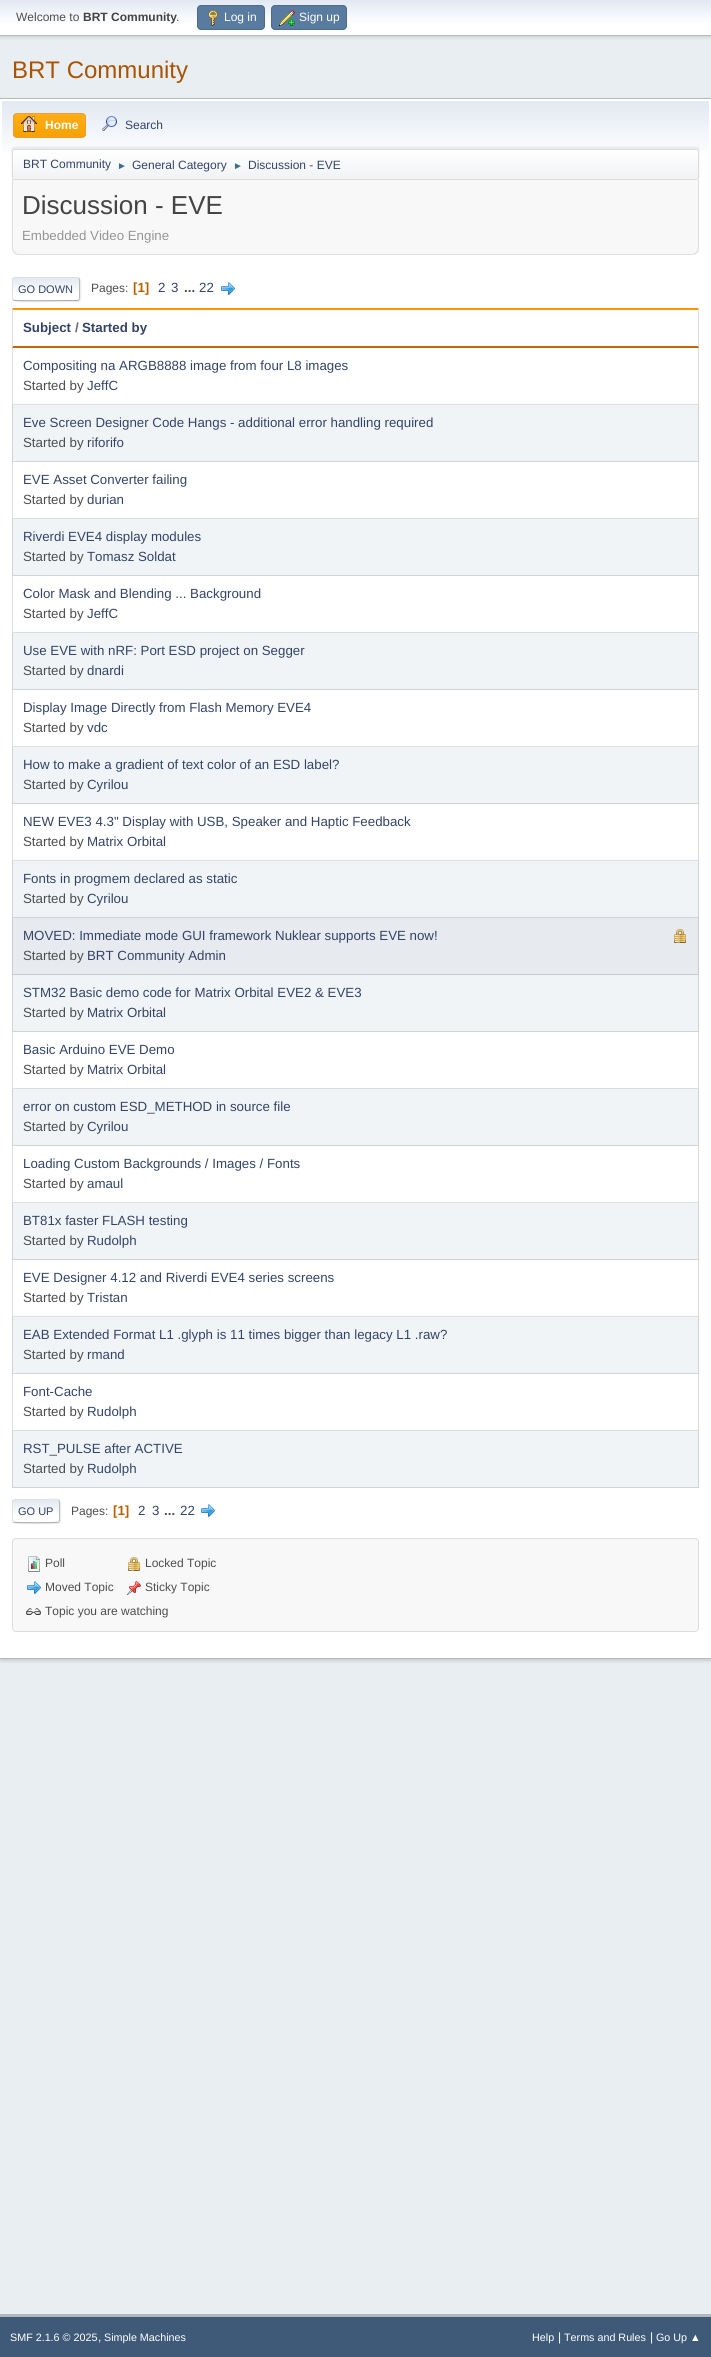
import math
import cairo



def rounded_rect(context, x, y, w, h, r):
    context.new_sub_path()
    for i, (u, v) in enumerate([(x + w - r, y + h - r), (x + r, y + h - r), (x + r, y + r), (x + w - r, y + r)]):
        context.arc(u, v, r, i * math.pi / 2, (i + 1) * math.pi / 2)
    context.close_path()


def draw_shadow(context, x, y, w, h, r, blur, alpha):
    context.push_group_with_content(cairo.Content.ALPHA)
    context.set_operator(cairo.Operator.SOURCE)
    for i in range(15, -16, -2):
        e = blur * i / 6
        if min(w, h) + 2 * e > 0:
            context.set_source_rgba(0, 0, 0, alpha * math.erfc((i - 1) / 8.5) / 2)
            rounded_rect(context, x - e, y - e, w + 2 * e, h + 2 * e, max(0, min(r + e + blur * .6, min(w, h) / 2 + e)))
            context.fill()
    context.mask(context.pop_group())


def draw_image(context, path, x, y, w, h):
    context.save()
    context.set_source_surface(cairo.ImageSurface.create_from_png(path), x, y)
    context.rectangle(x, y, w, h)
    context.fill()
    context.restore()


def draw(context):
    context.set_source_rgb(233 / 255, 238 / 255, 242 / 255)
    context.paint()
    context.set_source_rgb(0, 0, 0)
    draw_shadow(context, 0, 1, 711, 36, 0, 2, 0.16)
    gradient = cairo.LinearGradient(356, 0, 356, 35)
    gradient.add_color_stop_rgba(0, 226 / 255, 233 / 255, 243 / 255, 1)
    gradient.add_color_stop_rgba(0.7, 1, 1, 1, 1)
    context.set_source(gradient)
    context.rectangle(0, 0, 711, 35)
    context.fill()
    context.set_source_rgb(187 / 255, 187 / 255, 187 / 255)
    context.rectangle(0, 35, 711, 1)
    context.fill()
    context.set_source_rgb(89 / 255, 123 / 255, 159 / 255)
    rounded_rect(context, 197.5, 5.5, 67, 24, 3.5)
    context.fill_preserve()
    context.set_source_rgb(74 / 255, 107 / 255, 140 / 255)
    context.set_line_width(1)
    context.stroke()
    draw_image(context, "images/1.png", 208, 10, 10, 16)
    context.set_source_rgb(89 / 255, 123 / 255, 159 / 255)
    rounded_rect(context, 271.5, 5.5, 75, 24, 3.5)
    context.fill_preserve()
    context.set_source_rgb(74 / 255, 107 / 255, 140 / 255)
    context.stroke()
    draw_image(context, "images/2.png", 279, 10, 16, 16)
    context.set_source_rgb(0, 0, 0)
    draw_shadow(context, 0, 100, 711, 1561, 0, 1.5, 0.14)
    context.set_source_rgb(1, 1, 1)
    context.rectangle(0, 99, 711, 1559)
    context.fill()
    context.set_source_rgb(184 / 255, 184 / 255, 184 / 255)
    context.rectangle(0, 98, 711, 1)
    context.fill()
    context.rectangle(0, 1658, 711, 1)
    context.fill()
    gradient = cairo.LinearGradient(356, 101, 356, 182)
    gradient.add_color_stop_rgba(0, 226 / 255, 233 / 255, 243 / 255, 1)
    gradient.add_color_stop_rgba(0.7, 1, 1, 1, 1)
    context.set_source(gradient)
    context.rectangle(2, 101, 707, 52)
    context.fill()
    context.save()
    rounded_rect(context, 13, 113, 73, 25, 4)
    context.clip()
    gradient = cairo.LinearGradient(50, 114, 50, 137)
    gradient.add_color_stop_rgba(0, 1, 174 / 255, 20 / 255, 1)
    gradient.add_color_stop_rgba(1, 245 / 255, 161 / 255, 0, 1)
    context.set_source(gradient)
    context.rectangle(13, 114, 73, 23)
    context.fill()
    context.restore()
    rounded_rect(context, 13.5, 113.5, 72, 24, 3.5)
    context.set_source_rgb(244 / 255, 154 / 255, 58 / 255)
    context.stroke()
    draw_image(context, "images/3.png", 21, 116, 16, 16)
    draw_image(context, "images/4.png", 102, 116, 15, 15)
    context.set_source_rgb(0, 0, 0)
    draw_shadow(context, 12, 147, 687, 31, 2, 1, 0.08)
    context.save()
    rounded_rect(context, 12, 149, 687, 31, 2)
    context.clip()
    gradient = cairo.LinearGradient(356, 150, 356, 179)
    gradient.add_color_stop_rgba(0, 1, 1, 1, 1)
    gradient.add_color_stop_rgba(0.95, 241 / 255, 243 / 255, 245 / 255, 1)
    context.set_source(gradient)
    context.rectangle(12, 150, 687, 29)
    context.fill()
    context.restore()
    rounded_rect(context, 12.5, 149.5, 686, 30, 1.5)
    context.set_source_rgb(221 / 255, 221 / 255, 221 / 255)
    context.stroke()
    context.set_source_rgb(248 / 255, 248 / 255, 248 / 255)
    context.new_path()
    context.move_to(12, 180)
    context.line_to(699, 180)
    context.line_to(699, 248)
    context.curve_to(699, 252, 696, 255, 692, 255)
    context.line_to(19, 255)
    context.curve_to(15, 255, 12, 252, 12, 248)
    context.close_path()
    context.fill()
    context.set_source_rgb(221 / 255, 221 / 255, 221 / 255)
    context.set_fill_rule(cairo.FillRule.EVEN_ODD)
    context.new_path()
    context.move_to(12, 180)
    context.line_to(699, 180)
    context.line_to(699, 248)
    context.curve_to(699, 252, 696, 255, 692, 255)
    context.line_to(19, 255)
    context.curve_to(15, 255, 12, 252, 12, 248)
    context.close_path()
    context.move_to(13, 180)
    context.line_to(698, 180)
    context.line_to(698, 248)
    context.curve_to(698, 251, 695, 254, 692, 254)
    context.line_to(19, 254)
    context.curve_to(16, 254, 13, 251, 13, 248)
    context.close_path()
    context.fill()
    context.set_source_rgb(221 / 255, 221 / 255, 221 / 255)
    draw_shadow(context, 13, 278, 68, 24, 3, 0.5, 0.57)
    context.save()
    context.set_fill_rule(cairo.FillRule.WINDING)
    rounded_rect(context, 12, 277, 68, 24, 3)
    context.clip()
    gradient = cairo.LinearGradient(46, 278, 46, 300)
    gradient.add_color_stop_rgba(0, 226 / 255, 233 / 255, 243 / 255, 1)
    gradient.add_color_stop_rgba(0.7, 1, 1, 1, 1)
    context.set_source(gradient)
    context.rectangle(12, 278, 68, 22)
    context.fill()
    gradient = cairo.LinearGradient(46, 300, 46, 322)
    gradient.add_color_stop_rgba(0, 226 / 255, 233 / 255, 243 / 255, 1)
    gradient.add_color_stop_rgba(0.7, 1, 1, 1, 1)
    context.set_source(gradient)
    context.rectangle(12, 300, 68, 1)
    context.fill()
    context.restore()
    context.new_path()
    context.move_to(79, 278)
    context.curve_to(79, 278.5, 79.5, 279.5, 79.5, 280)
    context.line_to(79.5, 298)
    context.curve_to(79.5, 298.5, 79, 299.5, 79, 300)
    context.set_source_rgb(187 / 255, 187 / 255, 187 / 255)
    context.stroke()
    context.new_path()
    context.move_to(79, 300)
    context.line_to(77, 300.5)
    context.line_to(66.5, 300.5)
    context.curve_to(60.5, 300.5, 15.5, 301.5, 13.5, 300)
    context.line_to(13, 300)
    context.set_source_rgb(170 / 255, 170 / 255, 170 / 255)
    context.stroke()
    context.save()
    context.set_fill_rule(cairo.FillRule.WINDING)
    context.rectangle(12, 270, 687, 38)
    context.clip()
    context.new_path()
    context.move_to(13, 300)
    context.curve_to(11.5, 298, 12.5, 294, 12.5, 292)
    context.curve_to(12.5, 275.5, 9, 277.5, 25.5, 277.5)
    context.line_to(77, 277.5)
    context.line_to(79, 278)
    context.set_source_rgb(221 / 255, 221 / 255, 221 / 255)
    context.stroke()
    context.restore()
    draw_image(context, "images/5.png", 221, 282, 14, 13)
    context.set_source_rgb(1, 148 / 255, 0)
    context.set_fill_rule(cairo.FillRule.WINDING)
    context.new_path()
    context.move_to(12, 308)
    context.line_to(699, 308)
    context.line_to(698, 310)
    context.line_to(13, 310)
    context.close_path()
    context.fill()
    context.set_source_rgb(221 / 255, 221 / 255, 221 / 255)
    context.new_path()
    context.move_to(699, 308)
    context.line_to(699, 348)
    context.line_to(698, 346)
    context.line_to(698, 310)
    context.close_path()
    context.fill()
    context.set_source_rgb(191 / 255, 105 / 255, 0)
    context.new_path()
    context.move_to(699, 348)
    context.line_to(12, 348)
    context.line_to(13, 346)
    context.line_to(698, 346)
    context.close_path()
    context.fill()
    context.set_source_rgb(221 / 255, 221 / 255, 221 / 255)
    context.new_path()
    context.move_to(12, 348)
    context.line_to(12, 308)
    context.line_to(13, 310)
    context.line_to(13, 346)
    context.close_path()
    context.fill()
    context.set_source_rgb(220 / 255, 220 / 255, 220 / 255)
    context.new_path()
    context.move_to(699, 348)
    context.line_to(699, 405)
    context.line_to(698, 404)
    context.line_to(698, 348)
    context.close_path()
    context.fill()
    context.set_source_rgba(0, 0, 0, 0.13)
    context.new_path()
    context.move_to(699, 405)
    context.line_to(12, 405)
    context.line_to(13, 404)
    context.line_to(698, 404)
    context.close_path()
    context.fill()
    context.new_path()
    context.move_to(12, 405)
    context.line_to(12, 348)
    context.line_to(13, 348)
    context.line_to(13, 404)
    context.close_path()
    context.fill()
    context.set_source_rgb(240 / 255, 244 / 255, 247 / 255)
    context.rectangle(12, 405, 687, 57)
    context.fill()
    context.set_source_rgb(209 / 255, 212 / 255, 215 / 255)
    context.new_path()
    context.move_to(699, 405)
    context.line_to(699, 462)
    context.line_to(698, 461)
    context.line_to(698, 405)
    context.close_path()
    context.fill()
    context.set_source_rgba(0, 0, 0, 0.13)
    context.new_path()
    context.move_to(699, 462)
    context.line_to(12, 462)
    context.line_to(13, 461)
    context.line_to(698, 461)
    context.close_path()
    context.fill()
    context.new_path()
    context.move_to(12, 462)
    context.line_to(12, 405)
    context.line_to(13, 405)
    context.line_to(13, 461)
    context.close_path()
    context.fill()
    context.set_source_rgb(220 / 255, 220 / 255, 220 / 255)
    context.new_path()
    context.move_to(699, 462)
    context.line_to(699, 519)
    context.line_to(698, 518)
    context.line_to(698, 462)
    context.close_path()
    context.fill()
    context.set_source_rgba(0, 0, 0, 0.13)
    context.new_path()
    context.move_to(699, 519)
    context.line_to(12, 519)
    context.line_to(13, 518)
    context.line_to(698, 518)
    context.close_path()
    context.fill()
    context.new_path()
    context.move_to(12, 519)
    context.line_to(12, 462)
    context.line_to(13, 462)
    context.line_to(13, 518)
    context.close_path()
    context.fill()
    context.set_source_rgb(240 / 255, 244 / 255, 247 / 255)
    context.rectangle(12, 519, 687, 57)
    context.fill()
    context.set_source_rgb(209 / 255, 212 / 255, 215 / 255)
    context.new_path()
    context.move_to(699, 519)
    context.line_to(699, 576)
    context.line_to(698, 575)
    context.line_to(698, 519)
    context.close_path()
    context.fill()
    context.set_source_rgba(0, 0, 0, 0.13)
    context.new_path()
    context.move_to(699, 576)
    context.line_to(12, 576)
    context.line_to(13, 575)
    context.line_to(698, 575)
    context.close_path()
    context.fill()
    context.new_path()
    context.move_to(12, 576)
    context.line_to(12, 519)
    context.line_to(13, 519)
    context.line_to(13, 575)
    context.close_path()
    context.fill()
    context.set_source_rgb(220 / 255, 220 / 255, 220 / 255)
    context.new_path()
    context.move_to(699, 576)
    context.line_to(699, 633)
    context.line_to(698, 632)
    context.line_to(698, 576)
    context.close_path()
    context.fill()
    context.set_source_rgba(0, 0, 0, 0.13)
    context.new_path()
    context.move_to(699, 633)
    context.line_to(12, 633)
    context.line_to(13, 632)
    context.line_to(698, 632)
    context.close_path()
    context.fill()
    context.new_path()
    context.move_to(12, 633)
    context.line_to(12, 576)
    context.line_to(13, 576)
    context.line_to(13, 632)
    context.close_path()
    context.fill()
    context.set_source_rgb(240 / 255, 244 / 255, 247 / 255)
    context.rectangle(12, 633, 687, 57)
    context.fill()
    context.set_source_rgb(209 / 255, 212 / 255, 215 / 255)
    context.new_path()
    context.move_to(699, 633)
    context.line_to(699, 690)
    context.line_to(698, 689)
    context.line_to(698, 633)
    context.close_path()
    context.fill()
    context.set_source_rgba(0, 0, 0, 0.13)
    context.new_path()
    context.move_to(699, 690)
    context.line_to(12, 690)
    context.line_to(13, 689)
    context.line_to(698, 689)
    context.close_path()
    context.fill()
    context.new_path()
    context.move_to(12, 690)
    context.line_to(12, 633)
    context.line_to(13, 633)
    context.line_to(13, 689)
    context.close_path()
    context.fill()
    context.set_source_rgb(220 / 255, 220 / 255, 220 / 255)
    context.new_path()
    context.move_to(699, 690)
    context.line_to(699, 747)
    context.line_to(698, 746)
    context.line_to(698, 690)
    context.close_path()
    context.fill()
    context.set_source_rgba(0, 0, 0, 0.13)
    context.new_path()
    context.move_to(699, 747)
    context.line_to(12, 747)
    context.line_to(13, 746)
    context.line_to(698, 746)
    context.close_path()
    context.fill()
    context.new_path()
    context.move_to(12, 747)
    context.line_to(12, 690)
    context.line_to(13, 690)
    context.line_to(13, 746)
    context.close_path()
    context.fill()
    context.set_source_rgb(240 / 255, 244 / 255, 247 / 255)
    context.rectangle(12, 747, 687, 57)
    context.fill()
    context.set_source_rgb(209 / 255, 212 / 255, 215 / 255)
    context.new_path()
    context.move_to(699, 747)
    context.line_to(699, 804)
    context.line_to(698, 803)
    context.line_to(698, 747)
    context.close_path()
    context.fill()
    context.set_source_rgba(0, 0, 0, 0.13)
    context.new_path()
    context.move_to(699, 804)
    context.line_to(12, 804)
    context.line_to(13, 803)
    context.line_to(698, 803)
    context.close_path()
    context.fill()
    context.new_path()
    context.move_to(12, 804)
    context.line_to(12, 747)
    context.line_to(13, 747)
    context.line_to(13, 803)
    context.close_path()
    context.fill()
    context.set_source_rgb(220 / 255, 220 / 255, 220 / 255)
    context.new_path()
    context.move_to(699, 804)
    context.line_to(699, 861)
    context.line_to(698, 860)
    context.line_to(698, 804)
    context.close_path()
    context.fill()
    context.set_source_rgba(0, 0, 0, 0.13)
    context.new_path()
    context.move_to(699, 861)
    context.line_to(12, 861)
    context.line_to(13, 860)
    context.line_to(698, 860)
    context.close_path()
    context.fill()
    context.new_path()
    context.move_to(12, 861)
    context.line_to(12, 804)
    context.line_to(13, 804)
    context.line_to(13, 860)
    context.close_path()
    context.fill()
    context.set_source_rgb(240 / 255, 244 / 255, 247 / 255)
    context.rectangle(12, 861, 687, 57)
    context.fill()
    context.set_source_rgb(209 / 255, 212 / 255, 215 / 255)
    context.new_path()
    context.move_to(699, 861)
    context.line_to(699, 918)
    context.line_to(698, 917)
    context.line_to(698, 861)
    context.close_path()
    context.fill()
    context.set_source_rgba(0, 0, 0, 0.13)
    context.new_path()
    context.move_to(699, 918)
    context.line_to(12, 918)
    context.line_to(13, 917)
    context.line_to(698, 917)
    context.close_path()
    context.fill()
    context.new_path()
    context.move_to(12, 918)
    context.line_to(12, 861)
    context.line_to(13, 861)
    context.line_to(13, 917)
    context.close_path()
    context.fill()
    context.set_source_rgb(231 / 255, 234 / 255, 239 / 255)
    context.rectangle(12, 918, 687, 57)
    context.fill()
    context.set_source_rgb(201 / 255, 204 / 255, 208 / 255)
    context.new_path()
    context.move_to(699, 918)
    context.line_to(699, 975)
    context.line_to(698, 974)
    context.line_to(698, 918)
    context.close_path()
    context.fill()
    context.set_source_rgba(0, 0, 0, 0.13)
    context.new_path()
    context.move_to(699, 975)
    context.line_to(12, 975)
    context.line_to(13, 974)
    context.line_to(698, 974)
    context.close_path()
    context.fill()
    context.new_path()
    context.move_to(12, 975)
    context.line_to(12, 918)
    context.line_to(13, 918)
    context.line_to(13, 974)
    context.close_path()
    context.fill()
    draw_image(context, "images/6.png", 674, 929, 12, 14)
    context.set_source_rgb(240 / 255, 244 / 255, 247 / 255)
    context.rectangle(12, 975, 687, 57)
    context.fill()
    context.set_source_rgb(209 / 255, 212 / 255, 215 / 255)
    context.new_path()
    context.move_to(699, 975)
    context.line_to(699, 1032)
    context.line_to(698, 1031)
    context.line_to(698, 975)
    context.close_path()
    context.fill()
    context.set_source_rgba(0, 0, 0, 0.13)
    context.new_path()
    context.move_to(699, 1032)
    context.line_to(12, 1032)
    context.line_to(13, 1031)
    context.line_to(698, 1031)
    context.close_path()
    context.fill()
    context.new_path()
    context.move_to(12, 1032)
    context.line_to(12, 975)
    context.line_to(13, 975)
    context.line_to(13, 1031)
    context.close_path()
    context.fill()
    context.set_source_rgb(220 / 255, 220 / 255, 220 / 255)
    context.new_path()
    context.move_to(699, 1032)
    context.line_to(699, 1089)
    context.line_to(698, 1088)
    context.line_to(698, 1032)
    context.close_path()
    context.fill()
    context.set_source_rgba(0, 0, 0, 0.13)
    context.new_path()
    context.move_to(699, 1089)
    context.line_to(12, 1089)
    context.line_to(13, 1088)
    context.line_to(698, 1088)
    context.close_path()
    context.fill()
    context.new_path()
    context.move_to(12, 1089)
    context.line_to(12, 1032)
    context.line_to(13, 1032)
    context.line_to(13, 1088)
    context.close_path()
    context.fill()
    context.set_source_rgb(240 / 255, 244 / 255, 247 / 255)
    context.rectangle(12, 1089, 687, 57)
    context.fill()
    context.set_source_rgb(209 / 255, 212 / 255, 215 / 255)
    context.new_path()
    context.move_to(699, 1089)
    context.line_to(699, 1146)
    context.line_to(698, 1145)
    context.line_to(698, 1089)
    context.close_path()
    context.fill()
    context.set_source_rgba(0, 0, 0, 0.13)
    context.new_path()
    context.move_to(699, 1146)
    context.line_to(12, 1146)
    context.line_to(13, 1145)
    context.line_to(698, 1145)
    context.close_path()
    context.fill()
    context.new_path()
    context.move_to(12, 1146)
    context.line_to(12, 1089)
    context.line_to(13, 1089)
    context.line_to(13, 1145)
    context.close_path()
    context.fill()
    context.set_source_rgb(220 / 255, 220 / 255, 220 / 255)
    context.new_path()
    context.move_to(699, 1146)
    context.line_to(699, 1203)
    context.line_to(698, 1202)
    context.line_to(698, 1146)
    context.close_path()
    context.fill()
    context.set_source_rgba(0, 0, 0, 0.13)
    context.new_path()
    context.move_to(699, 1203)
    context.line_to(12, 1203)
    context.line_to(13, 1202)
    context.line_to(698, 1202)
    context.close_path()
    context.fill()
    context.new_path()
    context.move_to(12, 1203)
    context.line_to(12, 1146)
    context.line_to(13, 1146)
    context.line_to(13, 1202)
    context.close_path()
    context.fill()
    context.set_source_rgb(240 / 255, 244 / 255, 247 / 255)
    context.rectangle(12, 1203, 687, 57)
    context.fill()
    context.set_source_rgb(209 / 255, 212 / 255, 215 / 255)
    context.new_path()
    context.move_to(699, 1203)
    context.line_to(699, 1260)
    context.line_to(698, 1259)
    context.line_to(698, 1203)
    context.close_path()
    context.fill()
    context.set_source_rgba(0, 0, 0, 0.13)
    context.new_path()
    context.move_to(699, 1260)
    context.line_to(12, 1260)
    context.line_to(13, 1259)
    context.line_to(698, 1259)
    context.close_path()
    context.fill()
    context.new_path()
    context.move_to(12, 1260)
    context.line_to(12, 1203)
    context.line_to(13, 1203)
    context.line_to(13, 1259)
    context.close_path()
    context.fill()
    context.set_source_rgb(220 / 255, 220 / 255, 220 / 255)
    context.new_path()
    context.move_to(699, 1260)
    context.line_to(699, 1317)
    context.line_to(698, 1316)
    context.line_to(698, 1260)
    context.close_path()
    context.fill()
    context.set_source_rgba(0, 0, 0, 0.13)
    context.new_path()
    context.move_to(699, 1317)
    context.line_to(12, 1317)
    context.line_to(13, 1316)
    context.line_to(698, 1316)
    context.close_path()
    context.fill()
    context.new_path()
    context.move_to(12, 1317)
    context.line_to(12, 1260)
    context.line_to(13, 1260)
    context.line_to(13, 1316)
    context.close_path()
    context.fill()
    context.set_source_rgb(240 / 255, 244 / 255, 247 / 255)
    context.rectangle(12, 1317, 687, 57)
    context.fill()
    context.set_source_rgb(209 / 255, 212 / 255, 215 / 255)
    context.new_path()
    context.move_to(699, 1317)
    context.line_to(699, 1374)
    context.line_to(698, 1373)
    context.line_to(698, 1317)
    context.close_path()
    context.fill()
    context.set_source_rgba(0, 0, 0, 0.13)
    context.new_path()
    context.move_to(699, 1374)
    context.line_to(12, 1374)
    context.line_to(13, 1373)
    context.line_to(698, 1373)
    context.close_path()
    context.fill()
    context.new_path()
    context.move_to(12, 1374)
    context.line_to(12, 1317)
    context.line_to(13, 1317)
    context.line_to(13, 1373)
    context.close_path()
    context.fill()
    context.set_source_rgb(220 / 255, 220 / 255, 220 / 255)
    context.new_path()
    context.move_to(699, 1374)
    context.line_to(699, 1431)
    context.line_to(698, 1430)
    context.line_to(698, 1374)
    context.close_path()
    context.fill()
    context.set_source_rgba(0, 0, 0, 0.13)
    context.new_path()
    context.move_to(699, 1431)
    context.line_to(12, 1431)
    context.line_to(13, 1430)
    context.line_to(698, 1430)
    context.close_path()
    context.fill()
    context.new_path()
    context.move_to(12, 1431)
    context.line_to(12, 1374)
    context.line_to(13, 1374)
    context.line_to(13, 1430)
    context.close_path()
    context.fill()
    context.set_source_rgb(240 / 255, 244 / 255, 247 / 255)
    context.rectangle(12, 1431, 687, 57)
    context.fill()
    context.set_source_rgb(209 / 255, 212 / 255, 215 / 255)
    context.new_path()
    context.move_to(699, 1431)
    context.line_to(699, 1488)
    context.line_to(698, 1487)
    context.line_to(698, 1431)
    context.close_path()
    context.fill()
    context.set_source_rgba(0, 0, 0, 0.13)
    context.new_path()
    context.move_to(699, 1488)
    context.line_to(12, 1488)
    context.line_to(13, 1487)
    context.line_to(698, 1487)
    context.close_path()
    context.fill()
    context.new_path()
    context.move_to(12, 1488)
    context.line_to(12, 1431)
    context.line_to(13, 1431)
    context.line_to(13, 1487)
    context.close_path()
    context.fill()
    context.set_source_rgb(221 / 255, 221 / 255, 221 / 255)
    draw_shadow(context, 13, 1500, 48, 24, 3, 0.5, 0.57)
    context.set_source_rgb(1, 1, 1)
    rounded_rect(context, 12, 1499, 48, 24, 3)
    context.fill()
    context.save()
    rounded_rect(context, 12, 1499, 48, 24, 3)
    context.clip()
    gradient = cairo.LinearGradient(36, 1500, 36, 1522)
    gradient.add_color_stop_rgba(0, 226 / 255, 233 / 255, 243 / 255, 1)
    gradient.add_color_stop_rgba(0.7, 1, 1, 1, 1)
    context.set_source(gradient)
    context.rectangle(12, 1500, 48, 22)
    context.fill()
    context.restore()
    context.new_path()
    context.move_to(59, 1500)
    context.curve_to(59, 1500.5, 59.5, 1501.5, 59.5, 1502)
    context.line_to(59.5, 1520)
    context.curve_to(59.5, 1520.5, 59, 1521.5, 59, 1522)
    context.set_source_rgb(187 / 255, 187 / 255, 187 / 255)
    context.stroke()
    context.new_path()
    context.move_to(59, 1522)
    context.curve_to(57.5, 1523, 14.5, 1523, 13, 1522)
    context.set_source_rgb(170 / 255, 170 / 255, 170 / 255)
    context.stroke()
    context.save()
    context.rectangle(12, 1492, 687, 38)
    context.clip()
    context.new_path()
    context.move_to(13, 1522)
    context.curve_to(11.5, 1520, 12.5, 1513, 12.5, 1511)
    context.curve_to(12.5, 1499, 10, 1499.5, 22, 1499.5)
    context.line_to(43, 1499.5)
    context.curve_to(45.5, 1499.5, 57, 1498.5, 59, 1500)
    context.set_source_rgb(221 / 255, 221 / 255, 221 / 255)
    context.stroke()
    context.restore()
    draw_image(context, "images/5.png", 201, 1504, 14, 13)
    context.set_source_rgb(248 / 255, 248 / 255, 248 / 255)
    rounded_rect(context, 12.5, 1538.5, 686, 93, 3.5)
    context.fill_preserve()
    context.set_source_rgb(221 / 255, 221 / 255, 221 / 255)
    context.stroke()
    draw_image(context, "images/7.png", 128, 1557, 12, 14)
    draw_image(context, "images/8.png", 127, 1581, 14, 14)
    draw_image(context, "images/9.png", 26, 1608, 15, 7)
    draw_image(context, "images/10.png", 28, 1556, 12, 16)
    draw_image(context, "images/11.png", 27, 1581, 14, 13)
    context.set_source_rgb(62 / 255, 90 / 255, 120 / 255)
    context.rectangle(0, 2317, 711, 40)
    context.fill()
    context.set_source_rgb(178 / 255, 182 / 255, 189 / 255)
    context.rectangle(0, 2314, 711, 3)
    context.fill()
    context.select_font_face("Liberation Sans")
    context.set_font_size(12)
    context.set_source_rgb(77 / 255, 77 / 255, 77 / 255)
    context.move_to(16, 21)
    context.show_text("Welcome to")
    context.select_font_face("Liberation Sans", cairo.FontSlant.NORMAL, cairo.FontWeight.BOLD)
    context.set_source_rgb(68 / 255, 68 / 255, 68 / 255)
    context.move_to(83, 21)
    context.show_text("BRT Community")
    context.select_font_face("Liberation Sans")
    context.set_source_rgb(77 / 255, 77 / 255, 77 / 255)
    context.move_to(176, 21)
    context.show_text(".")
    context.set_source_rgb(1, 1, 1)
    context.move_to(224, 21)
    context.show_text("Log in")
    context.move_to(299, 21)
    context.show_text("Sign up")
    context.set_font_size(24)
    context.set_source_rgb(168 / 255, 84 / 255, 0)
    context.move_to(12, 78)
    context.show_text("BRT Community")
    context.select_font_face("Liberation Sans", cairo.FontSlant.NORMAL, cairo.FontWeight.BOLD)
    context.set_font_size(12)
    context.set_source_rgb(1, 1, 1)
    context.move_to(45, 129)
    context.show_text("Home")
    context.select_font_face("Liberation Sans")
    context.set_source_rgb(51 / 255, 68 / 255, 102 / 255)
    context.move_to(125, 129)
    context.show_text("Search")
    context.move_to(23, 168)
    context.show_text("BRT Community")
    context.set_font_size(10)
    context.set_source_rgb(63 / 255, 107 / 255, 140 / 255)
    context.move_to(117, 169)
    context.show_text("►")
    context.set_font_size(12)
    context.set_source_rgb(51 / 255, 68 / 255, 102 / 255)
    context.move_to(132, 169)
    context.show_text("General Category")
    context.set_font_size(10)
    context.set_source_rgb(63 / 255, 107 / 255, 140 / 255)
    context.move_to(233, 169)
    context.show_text("►")
    context.set_font_size(12)
    context.set_source_rgb(51 / 255, 68 / 255, 102 / 255)
    context.move_to(248, 169)
    context.show_text("Discussion - EVE")
    context.set_font_size(26)
    context.set_source_rgb(68 / 255, 68 / 255, 68 / 255)
    context.move_to(22, 214)
    context.show_text("Discussion - EVE")
    context.set_font_size(13.3)
    context.set_source_rgb(149 / 255, 149 / 255, 149 / 255)
    context.move_to(22, 240)
    context.show_text("Embedded Video Engine")
    context.set_font_size(11)
    context.set_source_rgb(51 / 255, 68 / 255, 102 / 255)
    context.move_to(18, 293)
    context.show_text("GO DOWN")
    context.set_font_size(12)
    context.set_source_rgb(77 / 255, 77 / 255, 77 / 255)
    context.move_to(91, 292)
    context.show_text("Pages:")
    context.select_font_face("Liberation Sans", cairo.FontSlant.NORMAL, cairo.FontWeight.BOLD)
    context.set_font_size(13.3)
    context.set_source_rgb(180 / 255, 97 / 255, 0)
    context.move_to(133, 292)
    context.show_text("[1]")
    context.select_font_face("Liberation Sans")
    context.set_source_rgb(51 / 255, 68 / 255, 102 / 255)
    context.move_to(158, 292)
    context.show_text("2")
    context.move_to(171, 292)
    context.show_text("3")
    context.select_font_face("Liberation Sans", cairo.FontSlant.NORMAL, cairo.FontWeight.BOLD)
    context.set_source_rgb(77 / 255, 77 / 255, 77 / 255)
    context.move_to(184, 292)
    context.show_text("...")
    context.select_font_face("Liberation Sans")
    context.set_source_rgb(51 / 255, 68 / 255, 102 / 255)
    context.move_to(199, 292)
    context.show_text("22")
    context.select_font_face("Liberation Sans", cairo.FontSlant.NORMAL, cairo.FontWeight.BOLD)
    context.move_to(23, 332)
    context.show_text("Subject")
    context.set_source_rgb(102 / 255, 102 / 255, 102 / 255)
    context.move_to(75, 332)
    context.show_text("/")
    context.set_source_rgb(51 / 255, 68 / 255, 102 / 255)
    context.move_to(82, 332)
    context.show_text("Started by")
    context.select_font_face("Liberation Sans")
    context.move_to(23, 370)
    context.show_text("Compositing na ARGB8888 image from four L8 images")
    context.set_source_rgb(77 / 255, 77 / 255, 77 / 255)
    context.move_to(23, 390)
    context.show_text("Started by")
    context.set_source_rgb(51 / 255, 68 / 255, 102 / 255)
    context.move_to(87, 390)
    context.show_text("JeffC")
    context.move_to(23, 427)
    context.show_text("Eve Screen Designer Code Hangs - additional error handling required")
    context.set_source_rgb(77 / 255, 77 / 255, 77 / 255)
    context.move_to(23, 447)
    context.show_text("Started by")
    context.set_source_rgb(51 / 255, 68 / 255, 102 / 255)
    context.move_to(87, 447)
    context.show_text("riforifo")
    context.move_to(23, 484)
    context.show_text("EVE Asset Converter failing")
    context.set_source_rgb(77 / 255, 77 / 255, 77 / 255)
    context.move_to(23, 504)
    context.show_text("Started by")
    context.set_source_rgb(51 / 255, 68 / 255, 102 / 255)
    context.move_to(87, 504)
    context.show_text("durian")
    context.move_to(23, 541)
    context.show_text("Riverdi EVE4 display modules")
    context.set_source_rgb(77 / 255, 77 / 255, 77 / 255)
    context.move_to(23, 561)
    context.show_text("Started by")
    context.set_source_rgb(51 / 255, 68 / 255, 102 / 255)
    context.move_to(87, 561)
    context.show_text("Tomasz Soldat")
    context.move_to(23, 598)
    context.show_text("Color Mask and Blending ... Background")
    context.set_source_rgb(77 / 255, 77 / 255, 77 / 255)
    context.move_to(23, 618)
    context.show_text("Started by")
    context.set_source_rgb(51 / 255, 68 / 255, 102 / 255)
    context.move_to(87, 618)
    context.show_text("JeffC")
    context.move_to(23, 655)
    context.show_text("Use EVE with nRF: Port ESD project on Segger")
    context.set_source_rgb(77 / 255, 77 / 255, 77 / 255)
    context.move_to(23, 675)
    context.show_text("Started by")
    context.set_source_rgb(51 / 255, 68 / 255, 102 / 255)
    context.move_to(87, 675)
    context.show_text("dnardi")
    context.move_to(23, 712)
    context.show_text("Display Image Directly from Flash Memory EVE4")
    context.set_source_rgb(77 / 255, 77 / 255, 77 / 255)
    context.move_to(23, 732)
    context.show_text("Started by")
    context.set_source_rgb(51 / 255, 68 / 255, 102 / 255)
    context.move_to(87, 732)
    context.show_text("vdc")
    context.move_to(23, 769)
    context.show_text("How to make a gradient of text color of an ESD label?")
    context.set_source_rgb(77 / 255, 77 / 255, 77 / 255)
    context.move_to(23, 789)
    context.show_text("Started by")
    context.set_source_rgb(51 / 255, 68 / 255, 102 / 255)
    context.move_to(87, 789)
    context.show_text("Cyrilou")
    context.move_to(23, 826)
    context.show_text("NEW EVE3 4.3\" Display with USB, Speaker and Haptic Feedback")
    context.set_source_rgb(77 / 255, 77 / 255, 77 / 255)
    context.move_to(23, 846)
    context.show_text("Started by")
    context.set_source_rgb(51 / 255, 68 / 255, 102 / 255)
    context.move_to(87, 846)
    context.show_text("Matrix Orbital")
    context.move_to(23, 883)
    context.show_text("Fonts in progmem declared as static")
    context.set_source_rgb(77 / 255, 77 / 255, 77 / 255)
    context.move_to(23, 903)
    context.show_text("Started by")
    context.set_source_rgb(51 / 255, 68 / 255, 102 / 255)
    context.move_to(87, 903)
    context.show_text("Cyrilou")
    context.move_to(23, 940)
    context.show_text("MOVED: Immediate mode GUI framework Nuklear supports EVE now!")
    context.set_source_rgb(77 / 255, 77 / 255, 77 / 255)
    context.move_to(23, 960)
    context.show_text("Started by")
    context.set_source_rgb(51 / 255, 68 / 255, 102 / 255)
    context.move_to(87, 960)
    context.show_text("BRT Community Admin")
    context.move_to(23, 997)
    context.show_text("STM32 Basic demo code for Matrix Orbital EVE2 & EVE3")
    context.set_source_rgb(77 / 255, 77 / 255, 77 / 255)
    context.move_to(23, 1017)
    context.show_text("Started by")
    context.set_source_rgb(51 / 255, 68 / 255, 102 / 255)
    context.move_to(87, 1017)
    context.show_text("Matrix Orbital")
    context.move_to(23, 1054)
    context.show_text("Basic Arduino EVE Demo")
    context.set_source_rgb(77 / 255, 77 / 255, 77 / 255)
    context.move_to(23, 1074)
    context.show_text("Started by")
    context.set_source_rgb(51 / 255, 68 / 255, 102 / 255)
    context.move_to(87, 1074)
    context.show_text("Matrix Orbital")
    context.move_to(23, 1111)
    context.show_text("error on custom ESD_METHOD in source file")
    context.set_source_rgb(77 / 255, 77 / 255, 77 / 255)
    context.move_to(23, 1131)
    context.show_text("Started by")
    context.set_source_rgb(51 / 255, 68 / 255, 102 / 255)
    context.move_to(87, 1131)
    context.show_text("Cyrilou")
    context.move_to(23, 1168)
    context.show_text("Loading Custom Backgrounds / Images / Fonts")
    context.set_source_rgb(77 / 255, 77 / 255, 77 / 255)
    context.move_to(23, 1188)
    context.show_text("Started by")
    context.set_source_rgb(51 / 255, 68 / 255, 102 / 255)
    context.move_to(87, 1188)
    context.show_text("amaul")
    context.move_to(23, 1225)
    context.show_text("BT81x faster FLASH testing")
    context.set_source_rgb(77 / 255, 77 / 255, 77 / 255)
    context.move_to(23, 1245)
    context.show_text("Started by")
    context.set_source_rgb(51 / 255, 68 / 255, 102 / 255)
    context.move_to(87, 1245)
    context.show_text("Rudolph")
    context.move_to(23, 1282)
    context.show_text("EVE Designer 4.12 and Riverdi EVE4 series screens")
    context.set_source_rgb(77 / 255, 77 / 255, 77 / 255)
    context.move_to(23, 1302)
    context.show_text("Started by")
    context.set_source_rgb(51 / 255, 68 / 255, 102 / 255)
    context.move_to(87, 1302)
    context.show_text("Tristan")
    context.move_to(23, 1339)
    context.show_text("EAB Extended Format L1 .glyph is 11 times bigger than legacy L1 .raw?")
    context.set_source_rgb(77 / 255, 77 / 255, 77 / 255)
    context.move_to(23, 1359)
    context.show_text("Started by")
    context.set_source_rgb(51 / 255, 68 / 255, 102 / 255)
    context.move_to(87, 1359)
    context.show_text("rmand")
    context.move_to(23, 1396)
    context.show_text("Font-Cache")
    context.set_source_rgb(77 / 255, 77 / 255, 77 / 255)
    context.move_to(23, 1416)
    context.show_text("Started by")
    context.set_source_rgb(51 / 255, 68 / 255, 102 / 255)
    context.move_to(87, 1416)
    context.show_text("Rudolph")
    context.move_to(23, 1453)
    context.show_text("RST_PULSE after ACTIVE")
    context.set_source_rgb(77 / 255, 77 / 255, 77 / 255)
    context.move_to(23, 1473)
    context.show_text("Started by")
    context.set_source_rgb(51 / 255, 68 / 255, 102 / 255)
    context.move_to(87, 1473)
    context.show_text("Rudolph")
    context.set_font_size(11)
    context.move_to(18, 1515)
    context.show_text("GO UP")
    context.set_font_size(12)
    context.set_source_rgb(77 / 255, 77 / 255, 77 / 255)
    context.move_to(71, 1515)
    context.show_text("Pages:")
    context.select_font_face("Liberation Sans", cairo.FontSlant.NORMAL, cairo.FontWeight.BOLD)
    context.set_font_size(13.3)
    context.set_source_rgb(180 / 255, 97 / 255, 0)
    context.move_to(113, 1515)
    context.show_text("[1]")
    context.select_font_face("Liberation Sans")
    context.set_source_rgb(51 / 255, 68 / 255, 102 / 255)
    context.move_to(138, 1515)
    context.show_text("2")
    context.move_to(152, 1515)
    context.show_text("3")
    context.select_font_face("Liberation Sans", cairo.FontSlant.NORMAL, cairo.FontWeight.BOLD)
    context.set_source_rgb(77 / 255, 77 / 255, 77 / 255)
    context.move_to(164, 1515)
    context.show_text("...")
    context.select_font_face("Liberation Sans")
    context.set_source_rgb(51 / 255, 68 / 255, 102 / 255)
    context.move_to(180, 1515)
    context.show_text("22")
    context.set_font_size(12)
    context.set_source_rgb(77 / 255, 77 / 255, 77 / 255)
    context.move_to(145, 1567)
    context.show_text("Locked Topic")
    context.move_to(145, 1591)
    context.show_text("Sticky Topic")
    context.move_to(45, 1615)
    context.show_text("Topic you are watching")
    context.move_to(45, 1567)
    context.show_text("Poll")
    context.move_to(45, 1591)
    context.show_text("Moved Topic")
    context.set_font_size(10.75)
    context.set_source_rgb(1, 1, 1)
    context.move_to(10, 2341)
    context.show_text("SMF 2.1.6 © 2025")
    context.set_font_size(12)
    context.move_to(98, 2341)
    context.show_text(",")
    context.set_font_size(10.75)
    context.move_to(104, 2341)
    context.show_text("Simple Machines")
    context.move_to(532, 2341)
    context.show_text("Help")
    context.set_font_size(12)
    context.move_to(558, 2341)
    context.show_text("|")
    context.set_font_size(10.75)
    context.move_to(564, 2341)
    context.show_text("Terms and Rules")
    context.set_font_size(12)
    context.move_to(650, 2341)
    context.show_text("|")
    context.set_font_size(10.75)
    context.move_to(656, 2341)
    context.show_text("Go Up ▲")


surface = cairo.ImageSurface(cairo.Format.RGB24, 711, 2357)
context = cairo.Context(surface)
options = cairo.FontOptions()
options.set_hint_metrics(cairo.HintMetrics.OFF)
options.set_hint_style(cairo.HintStyle.NONE)
context.set_font_options(options)
context.set_miter_limit(4)
draw(context)
surface.write_to_png("out.png")
